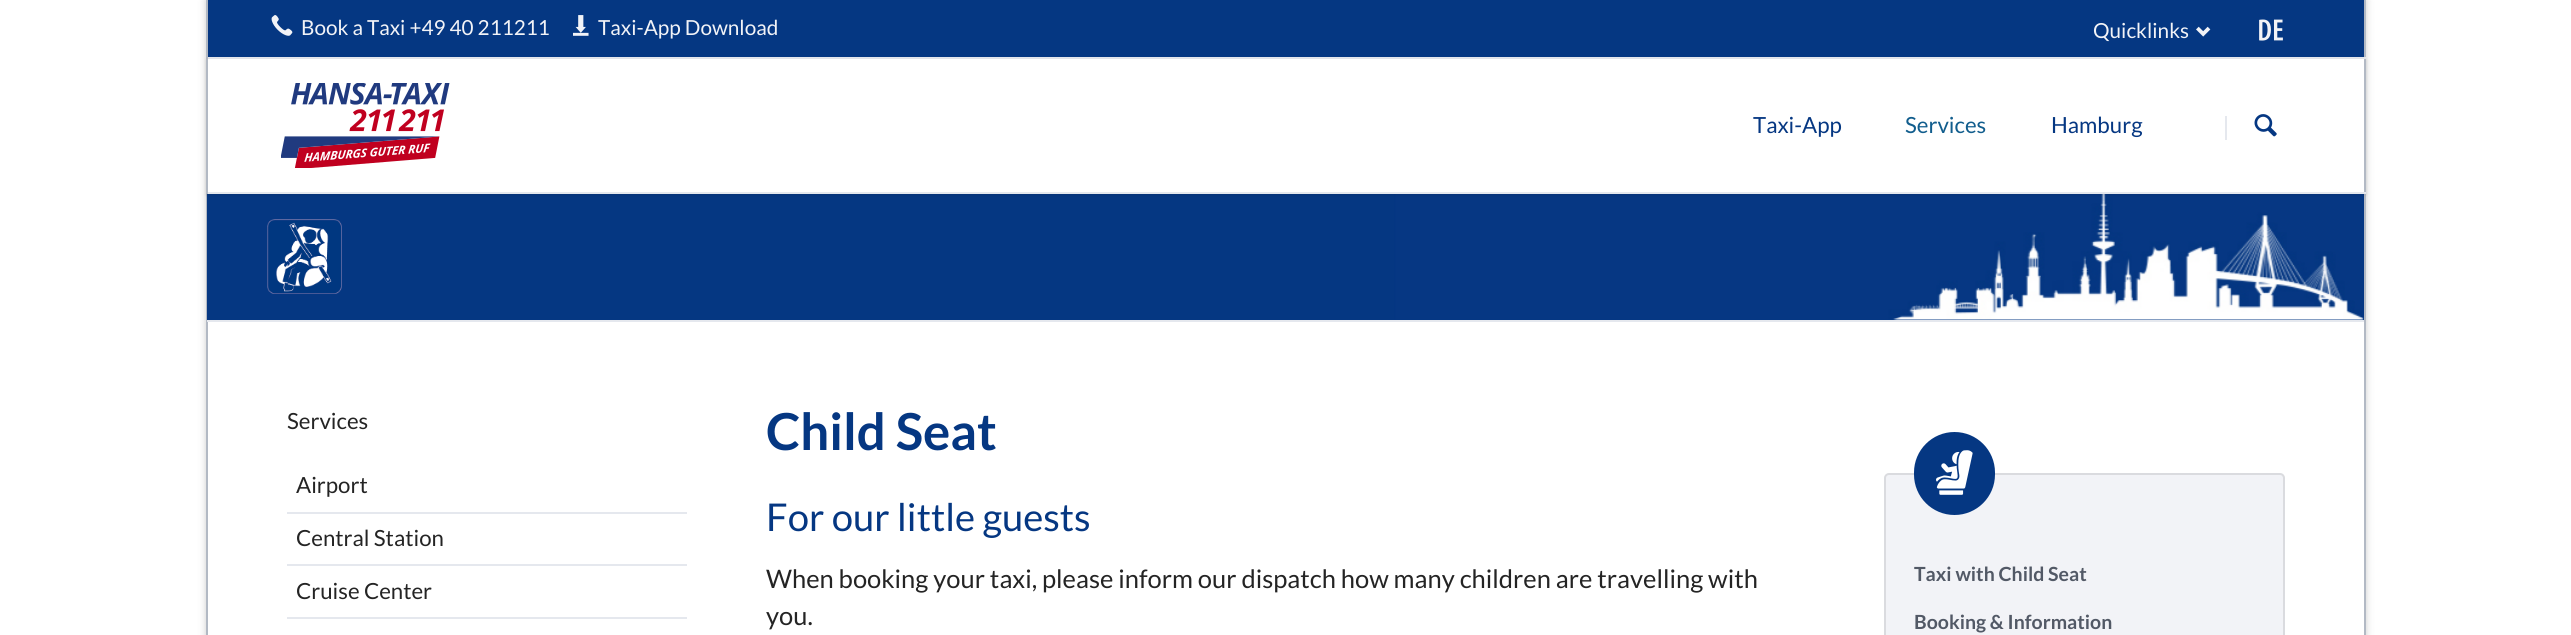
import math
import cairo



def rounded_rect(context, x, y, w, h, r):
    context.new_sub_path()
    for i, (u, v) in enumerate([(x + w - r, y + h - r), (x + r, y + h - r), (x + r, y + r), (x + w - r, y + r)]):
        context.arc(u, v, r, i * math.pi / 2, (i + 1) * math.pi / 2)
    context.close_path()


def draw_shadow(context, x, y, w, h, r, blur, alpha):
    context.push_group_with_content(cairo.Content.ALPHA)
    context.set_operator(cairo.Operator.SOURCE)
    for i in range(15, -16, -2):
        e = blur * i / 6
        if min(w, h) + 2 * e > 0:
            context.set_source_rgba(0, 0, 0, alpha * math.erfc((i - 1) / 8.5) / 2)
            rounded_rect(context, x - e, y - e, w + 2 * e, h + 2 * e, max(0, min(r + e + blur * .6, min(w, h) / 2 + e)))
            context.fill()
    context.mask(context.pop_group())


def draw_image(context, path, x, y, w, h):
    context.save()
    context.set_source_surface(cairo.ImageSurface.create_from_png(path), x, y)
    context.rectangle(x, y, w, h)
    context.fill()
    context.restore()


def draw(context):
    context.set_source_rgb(1, 1, 1)
    context.paint()
    context.save()
    context.set_fill_rule(cairo.FillRule.EVEN_ODD)
    context.new_path()
    context.move_to(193, 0)
    context.line_to(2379, 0)
    context.line_to(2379, 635)
    context.line_to(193, 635)
    context.close_path()
    context.move_to(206, 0)
    context.line_to(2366, 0)
    context.line_to(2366, 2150)
    context.line_to(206, 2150)
    context.close_path()
    context.clip()
    context.set_source_rgb(0, 0, 0)
    draw_shadow(context, 206, 0, 2160, 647, 0, 4, 0.2)
    context.restore()
    context.set_source_rgb(178 / 255, 185 / 255, 196 / 255)
    context.rectangle(2364, 194, 2, 441)
    context.fill()
    context.rectangle(206, 194, 2, 441)
    context.fill()
    context.set_source_rgb(5 / 255, 55 / 255, 130 / 255)
    context.rectangle(208, 0, 2156, 57)
    context.fill()
    context.set_source_rgb(178 / 255, 185 / 255, 196 / 255)
    context.rectangle(2364, 0, 2, 59)
    context.fill()
    context.set_source_rgb(229 / 255, 232 / 255, 238 / 255)
    context.rectangle(206, 57, 2160, 2)
    context.fill()
    context.set_source_rgb(178 / 255, 185 / 255, 196 / 255)
    context.rectangle(206, 0, 2, 59)
    context.fill()
    draw_image(context, "images/1.png", 271, 15, 22, 21)
    draw_image(context, "images/2.png", 573, 15, 16, 21)
    draw_image(context, "images/3.png", 2196, 26, 15, 11)
    draw_image(context, "images/4.png", 2259, 19, 24, 22)
    context.set_source_rgb(5 / 255, 55 / 255, 130 / 255)
    context.rectangle(207, 194, 2157, 126)
    context.fill()
    draw_image(context, "images/7.png", 1394, 194, 970, 126)
    context.set_source_rgb(0, 0, 0)
    draw_shadow(context, 206, 60, 2160, 135, 0, 1.5, 0.1)
    context.set_source_rgb(1, 1, 1)
    context.rectangle(208, 59, 2156, 133)
    context.fill()
    context.set_source_rgb(178 / 255, 185 / 255, 196 / 255)
    context.rectangle(2364, 59, 2, 135)
    context.fill()
    context.set_source_rgb(229 / 255, 232 / 255, 238 / 255)
    context.rectangle(206, 192, 2160, 2)
    context.fill()
    context.set_source_rgb(178 / 255, 185 / 255, 196 / 255)
    context.rectangle(206, 59, 2, 135)
    context.fill()
    draw_image(context, "images/5.png", 281, 83, 169, 85)
    context.set_source_rgb(229 / 255, 232 / 255, 238 / 255)
    context.rectangle(2225, 116, 2, 24)
    context.fill()
    draw_image(context, "images/6.png", 2254, 114, 23, 23)
    context.rectangle(207, 320, 2157, 2)
    context.fill()
    draw_image(context, "images/8.png", 267, 219, 75, 75)
    context.rectangle(287, 512, 400, 2)
    context.fill()
    context.rectangle(287, 564, 400, 2)
    context.fill()
    context.rectangle(287, 617, 400, 2)
    context.fill()
    context.set_source_rgb(242 / 255, 243 / 255, 247 / 255)
    rounded_rect(context, 1884, 473, 401, 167, 5)
    context.fill()
    rounded_rect(context, 1885, 474, 399, 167, 4)
    context.set_source_rgba(0, 0, 0, 0.1)
    context.stroke()
    context.set_source_rgb(5 / 255, 55 / 255, 130 / 255)
    rounded_rect(context, 1915.5, 433.5, 78, 80, 39)
    context.fill_preserve()
    context.set_line_width(3)
    context.stroke()
    draw_image(context, "images/9.png", 1936, 450, 37, 45)
    context.select_font_face("Lato")
    context.set_font_size(20.75)
    context.set_source_rgb(242 / 255, 243 / 255, 247 / 255)
    context.move_to(301, 35)
    context.show_text("Book a Taxi +49 40 211211")
    context.move_to(598, 35)
    context.show_text("Taxi-App Download")
    context.move_to(2093, 38)
    context.show_text("Quicklinks")
    context.set_font_size(22.25)
    context.set_source_rgb(5 / 255, 55 / 255, 130 / 255)
    context.move_to(1753, 133)
    context.show_text("Taxi-App")
    context.set_source_rgb(17 / 255, 93 / 255, 141 / 255)
    context.move_to(1905, 133)
    context.show_text("Services")
    context.set_source_rgb(5 / 255, 55 / 255, 130 / 255)
    context.move_to(2051, 133)
    context.show_text("Hamburg")
    context.set_source_rgb(36 / 255, 36 / 255, 36 / 255)
    context.move_to(287, 429)
    context.show_text("Services")
    context.move_to(296, 493)
    context.show_text("Airport")
    context.move_to(296, 546)
    context.show_text("Central Station")
    context.move_to(296, 599)
    context.show_text("Cruise Center")
    context.select_font_face("Lato", cairo.FontSlant.NORMAL, cairo.FontWeight.BOLD)
    context.set_font_size(51)
    context.set_source_rgb(5 / 255, 55 / 255, 130 / 255)
    context.move_to(766, 450)
    context.show_text("Child Seat")
    context.select_font_face("Lato")
    context.set_font_size(38.25)
    context.move_to(766, 531)
    context.show_text("For our little guests")
    context.set_font_size(25.5)
    context.set_source_rgb(36 / 255, 36 / 255, 36 / 255)
    context.move_to(766, 588)
    context.show_text("When booking your taxi, please inform our dispatch how many children are travelling with")
    context.move_to(766, 625)
    context.show_text("you.")
    context.select_font_face("Lato", cairo.FontSlant.NORMAL, cairo.FontWeight.BOLD)
    context.set_font_size(19.5)
    context.set_source_rgb(82 / 255, 89 / 255, 102 / 255)
    context.move_to(1914, 581)
    context.show_text("Taxi with Child Seat")
    context.move_to(1914, 629)
    context.show_text("Booking & Information")


surface = cairo.ImageSurface(cairo.Format.RGB24, 2571, 635)
context = cairo.Context(surface)
options = cairo.FontOptions()
options.set_hint_metrics(cairo.HintMetrics.OFF)
options.set_hint_style(cairo.HintStyle.NONE)
context.set_font_options(options)
context.set_miter_limit(4)
draw(context)
surface.write_to_png("out.png")
